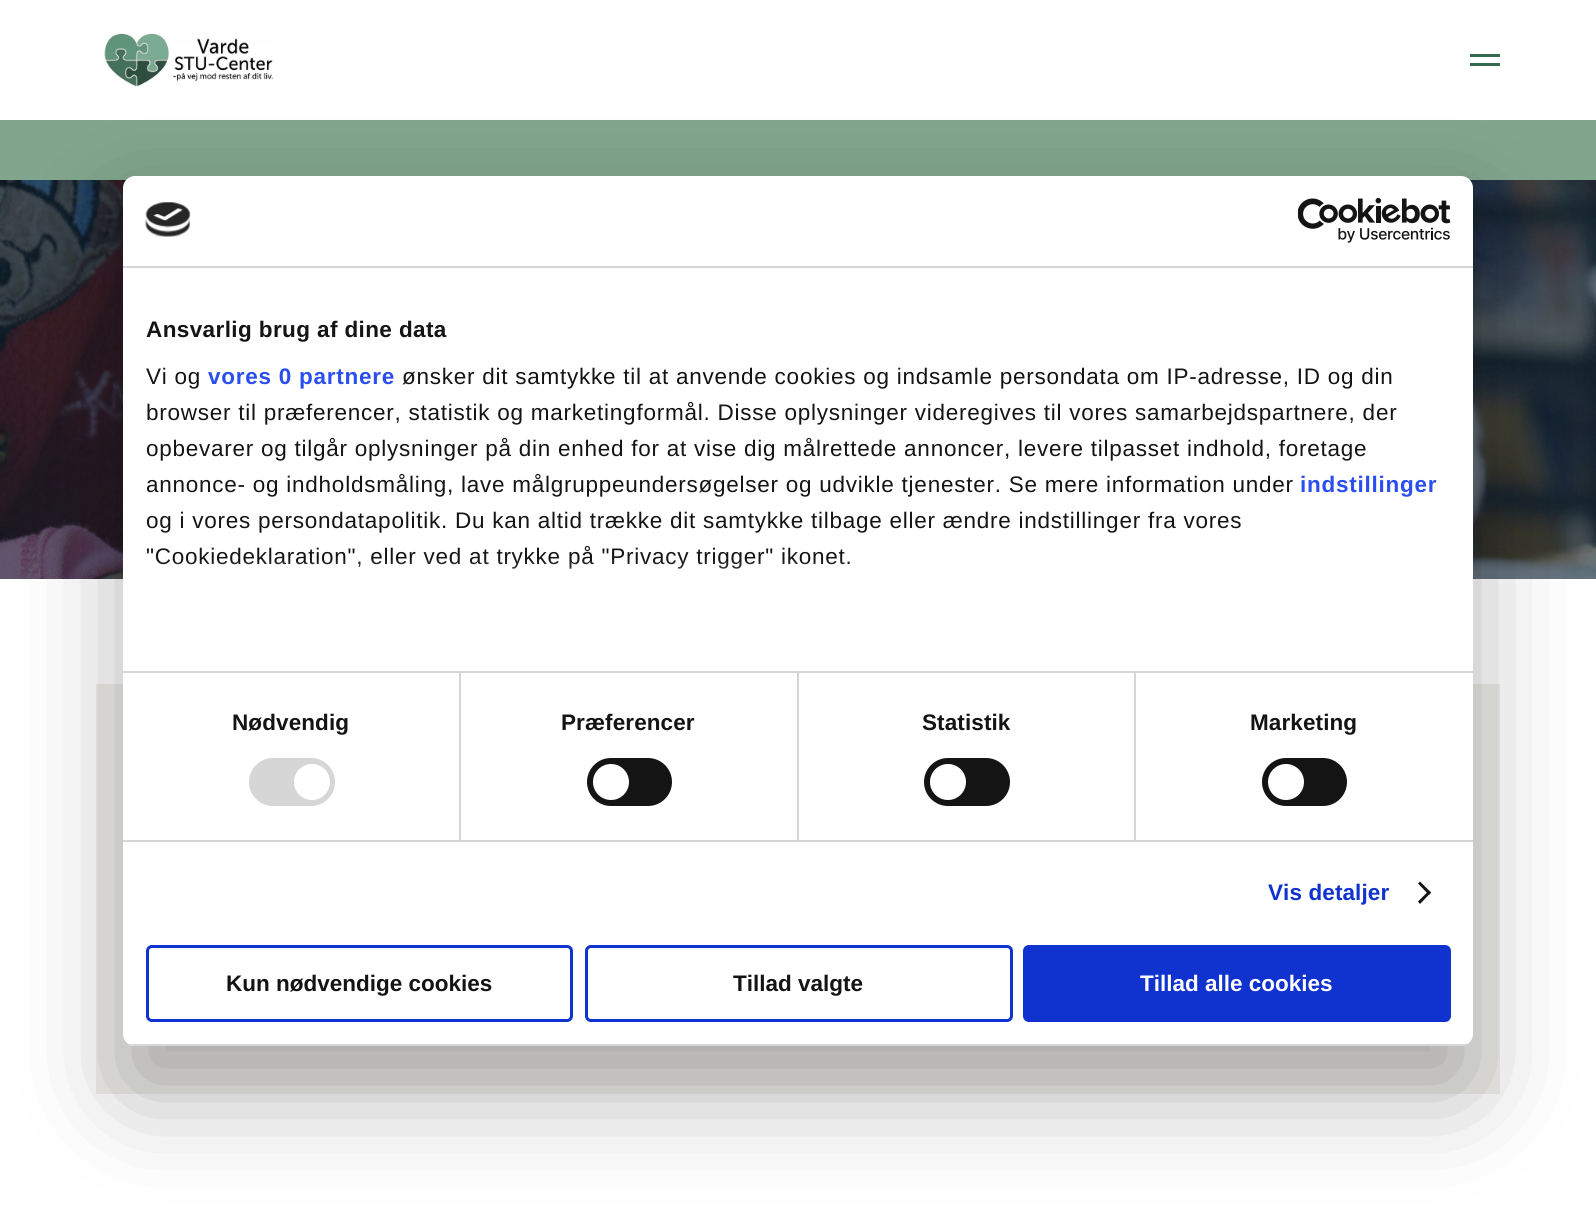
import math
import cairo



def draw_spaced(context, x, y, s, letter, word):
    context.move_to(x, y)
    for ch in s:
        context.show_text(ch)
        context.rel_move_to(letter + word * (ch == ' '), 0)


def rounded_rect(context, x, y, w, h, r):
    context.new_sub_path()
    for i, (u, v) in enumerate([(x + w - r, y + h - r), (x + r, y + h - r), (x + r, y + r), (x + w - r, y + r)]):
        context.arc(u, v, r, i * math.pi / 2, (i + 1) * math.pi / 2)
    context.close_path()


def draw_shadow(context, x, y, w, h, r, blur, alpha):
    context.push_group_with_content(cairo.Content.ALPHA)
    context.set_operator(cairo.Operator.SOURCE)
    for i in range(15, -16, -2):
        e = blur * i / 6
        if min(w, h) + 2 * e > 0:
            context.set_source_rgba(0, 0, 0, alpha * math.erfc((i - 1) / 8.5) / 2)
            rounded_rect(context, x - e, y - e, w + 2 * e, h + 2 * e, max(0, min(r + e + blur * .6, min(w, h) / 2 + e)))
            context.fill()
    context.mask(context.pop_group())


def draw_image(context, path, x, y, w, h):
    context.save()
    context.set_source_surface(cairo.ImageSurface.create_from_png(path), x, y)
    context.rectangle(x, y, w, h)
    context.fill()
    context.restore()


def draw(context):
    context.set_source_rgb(1, 1, 1)
    context.paint()
    draw_image(context, "images/2.png", 0, 180, 1596, 399)
    context.set_source_rgb(0, 0, 0)
    draw_shadow(context, 0, 5, 1596, 180, 0, 4.5, 0.1)
    context.set_source_rgb(1, 1, 1)
    context.rectangle(0, 0, 1596, 120)
    context.fill()
    draw_image(context, "images/1.png", 103, 33, 171, 54)
    context.set_source_rgb(53 / 255, 104 / 255, 77 / 255)
    context.rectangle(1470, 54, 30, 3)
    context.fill()
    context.rectangle(1470, 63, 30, 3)
    context.fill()
    context.set_source_rgb(129 / 255, 165 / 255, 141 / 255)
    context.rectangle(0, 120, 1596, 60)
    context.fill()
    context.set_source_rgb(239 / 255, 238 / 255, 235 / 255)
    context.rectangle(96, 684, 1404, 410)
    context.fill()
    context.set_source_rgb(0, 0, 0)
    draw_shadow(context, 123, 224, 1350, 870, 12, 51, 0.3)
    context.set_source_rgb(1, 1, 1)
    rounded_rect(context, 123, 176, 1350, 870, 12)
    context.fill()
    context.set_source_rgb(214 / 255, 214 / 255, 214 / 255)
    context.rectangle(123, 266, 1350, 2)
    context.fill()
    draw_image(context, "images/3.png", 145, 202, 46, 35)
    draw_image(context, "images/4.png", 1298, 198, 153, 45)
    context.rectangle(459, 672, 2, 168)
    context.fill()
    context.rectangle(797, 672, 2, 168)
    context.fill()
    context.rectangle(1134, 672, 2, 168)
    context.fill()
    context.rectangle(123, 671, 1350, 2)
    context.fill()
    context.rectangle(123, 840, 1350, 2)
    context.fill()
    rounded_rect(context, 249, 758, 86, 48, 24)
    context.fill()
    context.set_source_rgb(1, 1, 1)
    context.arc(312, 782, 18, 0, 2 * math.pi)
    context.fill()
    context.set_source_rgb(20 / 255, 20 / 255, 20 / 255)
    rounded_rect(context, 587, 758, 85, 48, 24)
    context.fill()
    context.set_source_rgb(1, 1, 1)
    context.arc(611, 782, 18, 0, 2 * math.pi)
    context.fill()
    context.set_source_rgb(20 / 255, 20 / 255, 20 / 255)
    rounded_rect(context, 924, 758, 86, 48, 24)
    context.fill()
    context.set_source_rgb(1, 1, 1)
    context.arc(948, 782, 18, 0, 2 * math.pi)
    context.fill()
    context.set_source_rgb(20 / 255, 20 / 255, 20 / 255)
    rounded_rect(context, 1262, 758, 85, 48, 24)
    context.fill()
    context.set_source_rgb(1, 1, 1)
    context.arc(1286, 782, 18, 0, 2 * math.pi)
    context.fill()
    context.set_source_rgb(20 / 255, 20 / 255, 20 / 255)
    context.new_path()
    context.move_to(1420, 881.5)
    context.line_to(1431, 892.5)
    context.line_to(1429, 895)
    context.line_to(1418, 883.5)
    context.close_path()
    context.fill()
    context.new_path()
    context.move_to(1429, 890.5)
    context.line_to(1431, 892.5)
    context.line_to(1420, 904)
    context.line_to(1418, 901.5)
    context.close_path()
    context.fill()
    context.save()
    rounded_rect(context, 123, 176, 1350, 870, 12)
    context.clip()
    context.set_source_rgb(214 / 255, 214 / 255, 214 / 255)
    context.rectangle(123, 1044, 1350, 2)
    context.fill()
    context.restore()
    rounded_rect(context, 147.5, 946.5, 424, 74, 4.5)
    context.set_source_rgb(16 / 255, 50 / 255, 207 / 255)
    context.set_line_width(3)
    context.stroke()
    rounded_rect(context, 586.5, 946.5, 425, 74, 4.5)
    context.stroke()
    rounded_rect(context, 1024.5, 946.5, 425, 74, 4.5)
    context.fill_preserve()
    context.stroke()
    context.select_font_face("Liberation Sans", cairo.FontSlant.NORMAL, cairo.FontWeight.BOLD)
    context.set_font_size(22.5)
    context.set_source_rgb(20 / 255, 20 / 255, 20 / 255)
    draw_spaced(context, 146, 337, "Ansvarlig brug af dine data", 0.4, 0)
    context.select_font_face("Liberation Sans")
    draw_spaced(context, 146, 384, "Vi og", 0.75, 0)
    context.select_font_face("Liberation Sans", cairo.FontSlant.NORMAL, cairo.FontWeight.BOLD)
    context.set_source_rgb(42 / 255, 78 / 255, 239 / 255)
    draw_spaced(context, 208, 384, "vores 0 partnere", 0.75, 0)
    context.select_font_face("Liberation Sans")
    context.set_source_rgb(20 / 255, 20 / 255, 20 / 255)
    draw_spaced(context, 402, 384, "ønsker dit samtykke til at anvende cookies og indsamle persondata om IP-adresse, ID og din", 0.75, 0)
    draw_spaced(context, 146, 420, "browser til præferencer, statistik og marketingformål. Disse oplysninger videregives til vores samarbejdspartnere, der", 0.75, 0)
    draw_spaced(context, 146, 456, "opbevarer og tilgår oplysninger på din enhed for at vise dig målrettede annoncer, levere tilpasset indhold, foretage", 0.75, 0)
    draw_spaced(context, 146, 492, "annonce- og indholdsmåling, lave målgruppeundersøgelser og udvikle tjenester. Se mere information under", 0.75, 0)
    context.select_font_face("Liberation Sans", cairo.FontSlant.NORMAL, cairo.FontWeight.BOLD)
    context.set_source_rgb(42 / 255, 78 / 255, 239 / 255)
    draw_spaced(context, 1300, 492, "indstillinger", 0.75, 0)
    context.select_font_face("Liberation Sans")
    context.set_source_rgb(20 / 255, 20 / 255, 20 / 255)
    draw_spaced(context, 146, 528, "og i vores persondatapolitik. Du kan altid trække dit samtykke tilbage eller ændre indstillinger fra vores", 0.75, 0)
    draw_spaced(context, 146, 564, "\"Cookiedeklaration\", eller ved at trykke på \"Privacy trigger\" ikonet.", 0.75, 0)
    gradient = cairo.LinearGradient(788, 670, 788, 558)
    gradient.add_color_stop_rgba(0, 1, 1, 1, 1)
    gradient.add_color_stop_rgba(0.5, 1, 1, 1, 0.8)
    gradient.add_color_stop_rgba(1, 1, 1, 1, 0)
    context.set_source(gradient)
    context.rectangle(156, 560, 694, 9)
    context.fill()
    context.select_font_face("Liberation Sans", cairo.FontSlant.NORMAL, cairo.FontWeight.BOLD)
    context.set_source_rgb(20 / 255, 20 / 255, 20 / 255)
    draw_spaced(context, 232, 730, "Nødvendig", 0.1, 0)
    draw_spaced(context, 561, 730, "Præferencer", 0.1, 0)
    draw_spaced(context, 922, 730, "Statistik", 0.1, 0)
    draw_spaced(context, 1250, 730, "Marketing", 0.1, 0)
    context.set_source_rgb(16 / 255, 50 / 255, 207 / 255)
    draw_spaced(context, 1268, 900, "Vis detaljer", 0.1, 0)
    context.set_source_rgb(20 / 255, 20 / 255, 20 / 255)
    context.move_to(226, 991)
    context.show_text("Kun nødvendige cookies")
    context.move_to(733, 991)
    context.show_text("Tillad valgte")
    context.set_source_rgb(1, 1, 1)
    context.move_to(1140, 991)
    context.show_text("Tillad alle cookies")


surface = cairo.ImageSurface(cairo.Format.RGB24, 1596, 1219)
context = cairo.Context(surface)
options = cairo.FontOptions()
options.set_hint_metrics(cairo.HintMetrics.OFF)
options.set_hint_style(cairo.HintStyle.NONE)
context.set_font_options(options)
context.set_miter_limit(4)
draw(context)
surface.write_to_png("out.png")
